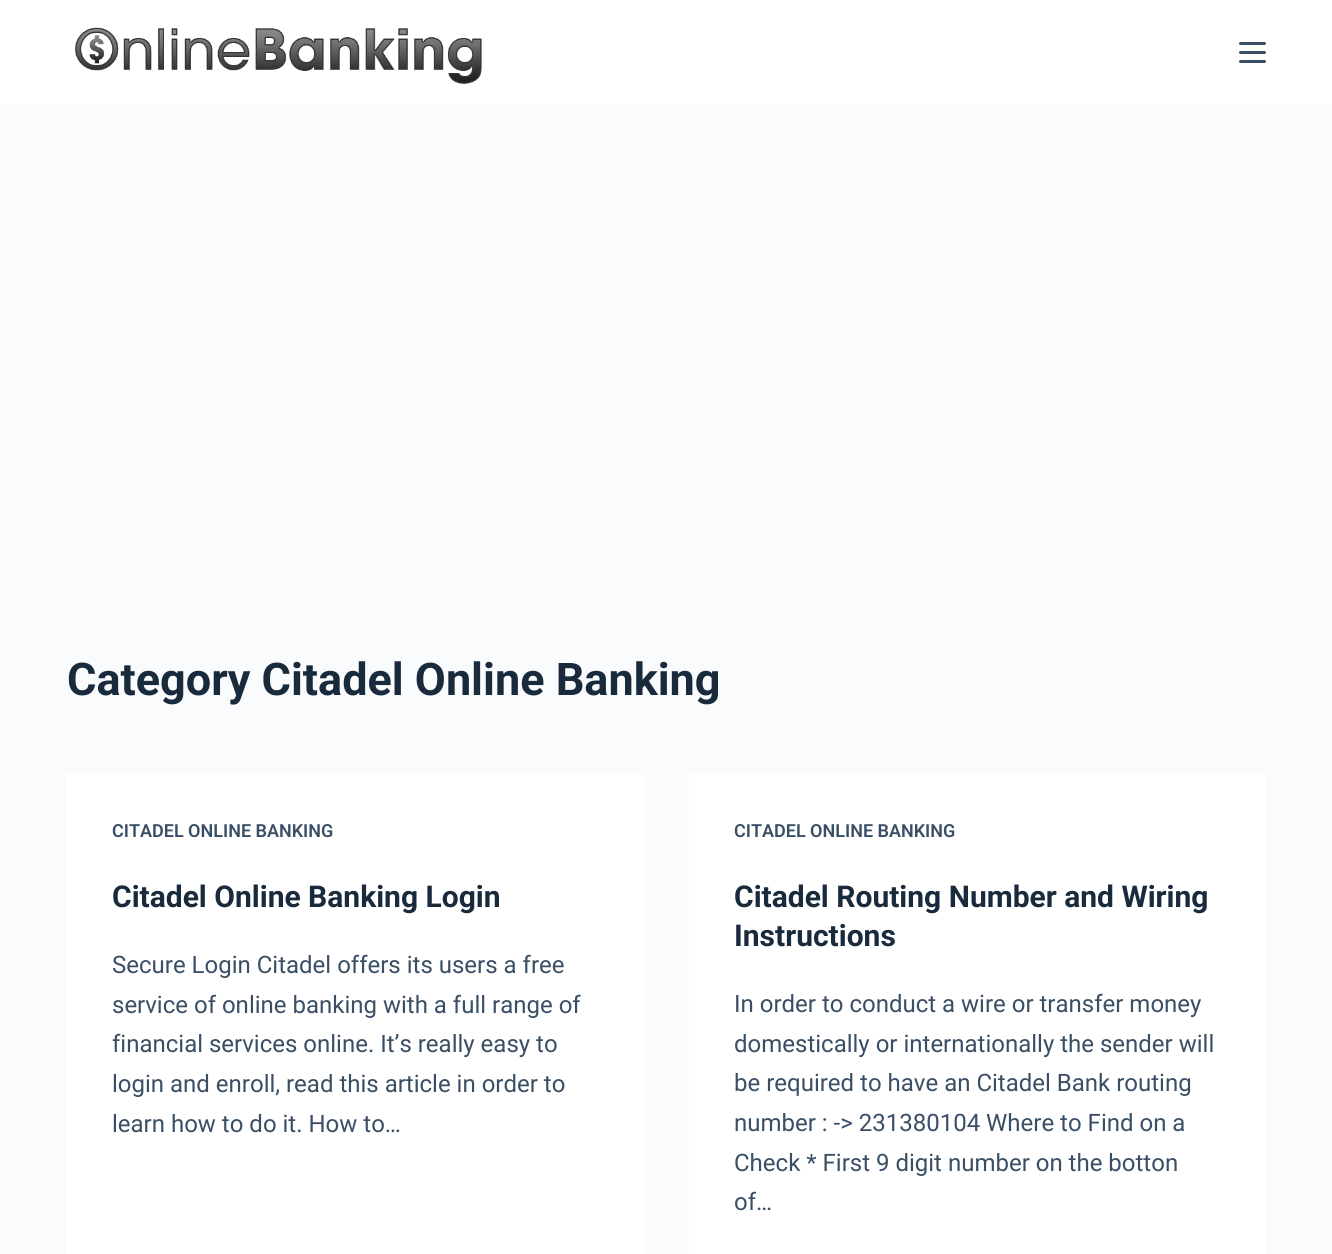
import math
import cairo



def rounded_rect(context, x, y, w, h, r):
    context.new_sub_path()
    for i, (u, v) in enumerate([(x + w - r, y + h - r), (x + r, y + h - r), (x + r, y + r), (x + w - r, y + r)]):
        context.arc(u, v, r, i * math.pi / 2, (i + 1) * math.pi / 2)
    context.close_path()


def draw_image(context, path, x, y, w, h):
    context.save()
    context.set_source_surface(cairo.ImageSurface.create_from_png(path), x, y)
    context.rectangle(x, y, w, h)
    context.fill()
    context.restore()


def draw(context):
    context.set_source_rgb(250 / 255, 251 / 255, 252 / 255)
    context.paint()
    context.set_source_rgb(1, 1, 1)
    context.rectangle(0, 0, 1332, 105)
    context.fill()
    draw_image(context, "images/1.png", 75, 27, 407, 57)
    context.set_source_rgb(58 / 255, 79 / 255, 102 / 255)
    rounded_rect(context, 1239, 42, 27, 3, 1.5)
    context.fill()
    rounded_rect(context, 1239, 51, 27, 3, 1.5)
    context.fill()
    rounded_rect(context, 1239, 60, 27, 3, 1.5)
    context.fill()
    context.set_source_rgb(1, 1, 1)
    context.rectangle(66, 773, 578, 481)
    context.fill()
    context.rectangle(689, 773, 577, 481)
    context.fill()
    context.select_font_face("Roboto", cairo.FontSlant.NORMAL, cairo.FontWeight.BOLD)
    context.set_font_size(45)
    context.set_source_rgb(25 / 255, 42 / 255, 61 / 255)
    context.move_to(67, 695)
    context.show_text("Category Citadel Online Banking")
    context.select_font_face("Roboto SemiBold")
    context.set_font_size(18)
    context.set_source_rgb(58 / 255, 79 / 255, 102 / 255)
    context.move_to(112, 837)
    context.show_text("CITADEL ONLINE BANKING")
    context.select_font_face("Roboto", cairo.FontSlant.NORMAL, cairo.FontWeight.BOLD)
    context.set_font_size(30)
    context.set_source_rgb(25 / 255, 42 / 255, 61 / 255)
    context.move_to(112, 907)
    context.show_text("Citadel Online Banking Login")
    context.select_font_face("Roboto")
    context.set_font_size(24)
    context.set_source_rgb(58 / 255, 79 / 255, 102 / 255)
    context.move_to(112, 973)
    context.show_text("Secure Login Citadel offers its users a free")
    context.move_to(112, 1013)
    context.show_text("service of online banking with a full range of")
    context.move_to(112, 1052)
    context.show_text("financial services online. It’s really easy to")
    context.move_to(112, 1092)
    context.show_text("login and enroll, read this article in order to")
    context.move_to(112, 1132)
    context.show_text("learn how to do it. How to…")
    context.select_font_face("Roboto SemiBold")
    context.set_font_size(18)
    context.move_to(734, 837)
    context.show_text("CITADEL ONLINE BANKING")
    context.select_font_face("Roboto", cairo.FontSlant.NORMAL, cairo.FontWeight.BOLD)
    context.set_font_size(30)
    context.set_source_rgb(25 / 255, 42 / 255, 61 / 255)
    context.move_to(734, 907)
    context.show_text("Citadel Routing Number and Wiring")
    context.move_to(734, 946)
    context.show_text("Instructions")
    context.select_font_face("Roboto")
    context.set_font_size(24)
    context.set_source_rgb(58 / 255, 79 / 255, 102 / 255)
    context.move_to(734, 1012)
    context.show_text("In order to conduct a wire or transfer money")
    context.move_to(734, 1052)
    context.show_text("domestically or internationally the sender will")
    context.move_to(734, 1091)
    context.show_text("be required to have an Citadel Bank routing")
    context.move_to(734, 1131)
    context.show_text("number : -> 231380104 Where to Find on a")
    context.move_to(734, 1171)
    context.show_text("Check * First 9 digit number on the botton")
    context.move_to(734, 1210)
    context.show_text("of…")


surface = cairo.ImageSurface(cairo.Format.RGB24, 1332, 1254)
context = cairo.Context(surface)
options = cairo.FontOptions()
options.set_hint_metrics(cairo.HintMetrics.OFF)
options.set_hint_style(cairo.HintStyle.NONE)
context.set_font_options(options)
context.set_miter_limit(4)
draw(context)
surface.write_to_png("out.png")
